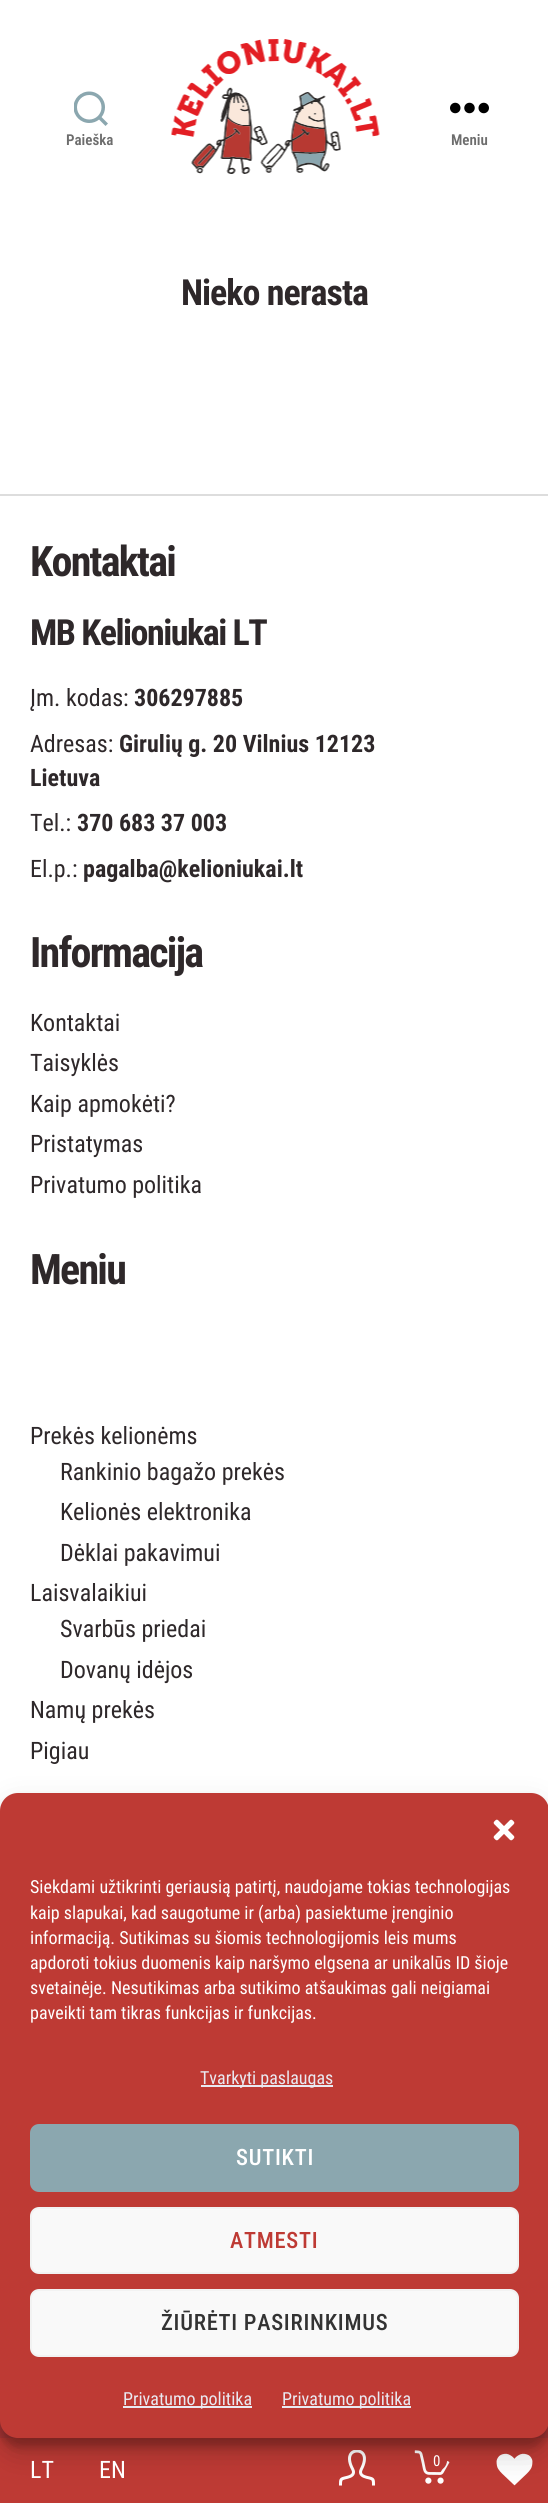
import math
import cairo



def draw_spaced(context, x, y, s, letter, word):
    context.move_to(x, y)
    for ch in s:
        context.show_text(ch)
        context.rel_move_to(letter + word * (ch == ' '), 0)


def rounded_rect(context, x, y, w, h, r):
    context.new_sub_path()
    for i, (u, v) in enumerate([(x + w - r, y + h - r), (x + r, y + h - r), (x + r, y + r), (x + w - r, y + r)]):
        context.arc(u, v, r, i * math.pi / 2, (i + 1) * math.pi / 2)
    context.close_path()


def draw_shadow(context, x, y, w, h, r, blur, alpha):
    context.push_group_with_content(cairo.Content.ALPHA)
    context.set_operator(cairo.Operator.SOURCE)
    for i in range(15, -16, -2):
        e = blur * i / 6
        if min(w, h) + 2 * e > 0:
            context.set_source_rgba(0, 0, 0, alpha * math.erfc((i - 1) / 8.5) / 2)
            rounded_rect(context, x - e, y - e, w + 2 * e, h + 2 * e, max(0, min(r + e + blur * .6, min(w, h) / 2 + e)))
            context.fill()
    context.mask(context.pop_group())


def draw_image(context, path, x, y, w, h):
    context.save()
    context.set_source_surface(cairo.ImageSurface.create_from_png(path), x, y)
    context.rectangle(x, y, w, h)
    context.fill()
    context.restore()


def draw(context):
    context.set_source_rgb(1, 1, 1)
    context.paint()
    draw_image(context, "images/1.png", 74, 91, 34, 35)
    draw_image(context, "images/2.png", 171, 39, 209, 135)
    draw_image(context, "images/3.png", 450, 102, 39, 12)
    context.set_source_rgb(221 / 255, 221 / 255, 221 / 255)
    context.rectangle(0, 494, 548, 2)
    context.fill()
    context.set_source_rgb(175 / 255, 55 / 255, 55 / 255)
    context.rectangle(0, 2420, 548, 18)
    context.fill()
    context.set_source_rgb(190 / 255, 58 / 255, 52 / 255)
    context.rectangle(0, 2438, 548, 65)
    context.fill()
    draw_image(context, "images/5.png", 339, 2450, 36, 36)
    draw_image(context, "images/6.png", 414, 2450, 36, 34)
    context.arc(436.5, 2460.5, 10.5, 0, 2 * math.pi)
    context.fill()
    draw_image(context, "images/7.png", 496, 2453, 37, 33)
    context.set_source_rgb(0, 0, 0)
    draw_shadow(context, 0, 1802, 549, 645, 18, 4.5, 0.23)
    draw_shadow(context, 0, 1808, 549, 645, 18, 15, 0.19)
    context.set_source_rgb(190 / 255, 58 / 255, 52 / 255)
    rounded_rect(context, 0, 1793, 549, 645, 18)
    context.fill()
    draw_image(context, "images/4.png", 493, 1819, 22, 22)
    context.set_source_rgb(233 / 255, 233 / 255, 241 / 255)
    context.rectangle(201, 2085, 132, 2)
    context.fill()
    context.set_source_rgb(139 / 255, 167 / 255, 175 / 255)
    rounded_rect(context, 31, 2125, 487, 66, 8)
    context.fill_preserve()
    context.stroke()
    context.set_source_rgb(249 / 255, 249 / 255, 249 / 255)
    rounded_rect(context, 31, 2208, 487, 65, 8)
    context.fill_preserve()
    context.set_source_rgb(242 / 255, 242 / 255, 242 / 255)
    context.stroke()
    context.set_source_rgb(249 / 255, 249 / 255, 249 / 255)
    rounded_rect(context, 31, 2290, 487, 66, 8)
    context.fill_preserve()
    context.set_source_rgb(242 / 255, 242 / 255, 242 / 255)
    context.stroke()
    context.set_source_rgb(233 / 255, 233 / 255, 241 / 255)
    context.rectangle(123, 2406, 129, 2)
    context.fill()
    context.rectangle(282, 2406, 129, 2)
    context.fill()
    context.select_font_face("Roboto Condensed SemiBold")
    context.set_font_size(15)
    context.set_source_rgb(109 / 255, 109 / 255, 109 / 255)
    context.move_to(66, 145)
    context.show_text("Paieška")
    context.move_to(451, 145)
    context.show_text("Meniu")
    context.select_font_face("Roboto Condensed", cairo.FontSlant.NORMAL, cairo.FontWeight.BOLD)
    context.set_font_size(36)
    context.set_source_rgb(46 / 255, 40 / 255, 42 / 255)
    draw_spaced(context, 181, 305, "Nieko nerasta", -1, 0)
    context.set_font_size(42)
    draw_spaced(context, 30, 576, "Kontaktai", -1.75, 0)
    context.set_font_size(36)
    draw_spaced(context, 30, 645, "MB Kelioniukai LT", -1.5, 0)
    context.select_font_face("Roboto Condensed")
    context.set_font_size(24)
    context.move_to(30, 706)
    context.show_text("Įm. kodas:")
    context.select_font_face("Roboto Condensed", cairo.FontSlant.NORMAL, cairo.FontWeight.BOLD)
    context.move_to(134, 706)
    context.show_text("306297885")
    context.select_font_face("Roboto Condensed")
    context.move_to(30, 752)
    context.show_text("Adresas:")
    context.select_font_face("Roboto Condensed", cairo.FontSlant.NORMAL, cairo.FontWeight.BOLD)
    context.move_to(119, 752)
    context.show_text("Girulių g. 20 Vilnius 12123")
    context.move_to(30, 786)
    context.show_text("Lietuva")
    context.select_font_face("Roboto Condensed")
    context.move_to(30, 831)
    context.show_text("Tel.:")
    context.select_font_face("Roboto Condensed", cairo.FontSlant.NORMAL, cairo.FontWeight.BOLD)
    context.move_to(77, 831)
    context.show_text("370 683 37 003")
    context.select_font_face("Roboto Condensed")
    context.move_to(30, 877)
    context.show_text("El.p.:")
    context.select_font_face("Roboto Condensed", cairo.FontSlant.NORMAL, cairo.FontWeight.BOLD)
    context.move_to(83, 877)
    context.show_text("pagalba@kelioniukai.lt")
    context.set_font_size(42)
    draw_spaced(context, 30, 967, "Informacija", -1.75, 0)
    context.select_font_face("Roboto Condensed")
    context.set_font_size(24)
    context.move_to(30, 1031)
    context.show_text("Kontaktai")
    context.move_to(30, 1071)
    context.show_text("Taisyklės")
    context.move_to(30, 1112)
    context.show_text("Kaip apmokėti?")
    context.move_to(30, 1152)
    context.show_text("Pristatymas")
    context.move_to(30, 1193)
    context.show_text("Privatumo politika")
    context.select_font_face("Roboto Condensed", cairo.FontSlant.NORMAL, cairo.FontWeight.BOLD)
    context.set_font_size(42)
    draw_spaced(context, 30, 1284, "Meniu", -1.75, 0)
    context.select_font_face("Roboto Condensed")
    context.set_font_size(24)
    context.move_to(30, 1444)
    context.show_text("Prekės kelionėms")
    context.move_to(60, 1480)
    context.show_text("Rankinio bagažo prekės")
    context.move_to(60, 1520)
    context.show_text("Kelionės elektronika")
    context.move_to(60, 1561)
    context.show_text("Dėklai pakavimui")
    context.move_to(30, 1601)
    context.show_text("Laisvalaikiui")
    context.move_to(60, 1637)
    context.show_text("Svarbūs priedai")
    context.move_to(60, 1678)
    context.show_text("Dovanų idėjos")
    context.move_to(30, 1718)
    context.show_text("Namų prekės")
    context.move_to(30, 1759)
    context.show_text("Pigiau")
    context.set_font_size(18)
    context.set_source_rgb(1, 1, 1)
    context.move_to(30, 1893)
    context.show_text("Siekdami užtikrinti geriausią patirtį, naudojame tokias technologijas")
    context.move_to(30, 1919)
    context.show_text("kaip slapukai, kad saugotume ir (arba) pasiektume įrenginio")
    context.move_to(30, 1944)
    context.show_text("informaciją. Sutikimas su šiomis technologijomis leis mums")
    context.move_to(30, 1969)
    context.show_text("apdoroti tokius duomenis kaip naršymo elgsena ar unikalūs ID šioje")
    context.move_to(30, 1994)
    context.show_text("svetainėje. Nesutikimas arba sutikimo atšaukimas gali neigiamai")
    context.move_to(30, 2019)
    context.show_text("paveikti tam tikras funkcijas ir funkcijas.")
    context.set_source_rgb(233 / 255, 233 / 255, 241 / 255)
    context.move_to(200, 2084)
    context.show_text("Tvarkyti paslaugas")
    context.select_font_face("Roboto Condensed Medium")
    context.set_font_size(22.5)
    context.set_source_rgb(1, 1, 1)
    draw_spaced(context, 236, 2165, "SUTIKTI", 0.75, 0)
    context.set_source_rgb(190 / 255, 58 / 255, 52 / 255)
    draw_spaced(context, 230, 2248, "ATMESTI", 0.75, 0)
    context.set_source_rgb(51 / 255, 51 / 255, 51 / 255)
    draw_spaced(context, 161, 2330, "ŽIŪRĖTI PASIRINKIMUS", 0.75, 0)
    context.select_font_face("Roboto Condensed")
    context.set_font_size(18)
    context.set_source_rgb(233 / 255, 233 / 255, 241 / 255)
    context.move_to(123, 2405)
    context.show_text("Privatumo politika")
    context.move_to(282, 2405)
    context.show_text("Privatumo politika")
    context.set_font_size(24)
    context.set_source_rgb(1, 1, 1)
    context.move_to(30, 2478)
    context.show_text("LT")
    context.move_to(99, 2478)
    context.show_text("EN")
    context.set_font_size(15)
    context.move_to(433, 2466)
    context.show_text("0")


surface = cairo.ImageSurface(cairo.Format.RGB24, 548, 2503)
context = cairo.Context(surface)
options = cairo.FontOptions()
options.set_hint_metrics(cairo.HintMetrics.OFF)
options.set_hint_style(cairo.HintStyle.NONE)
context.set_font_options(options)
context.set_miter_limit(4)
draw(context)
surface.write_to_png("out.png")
